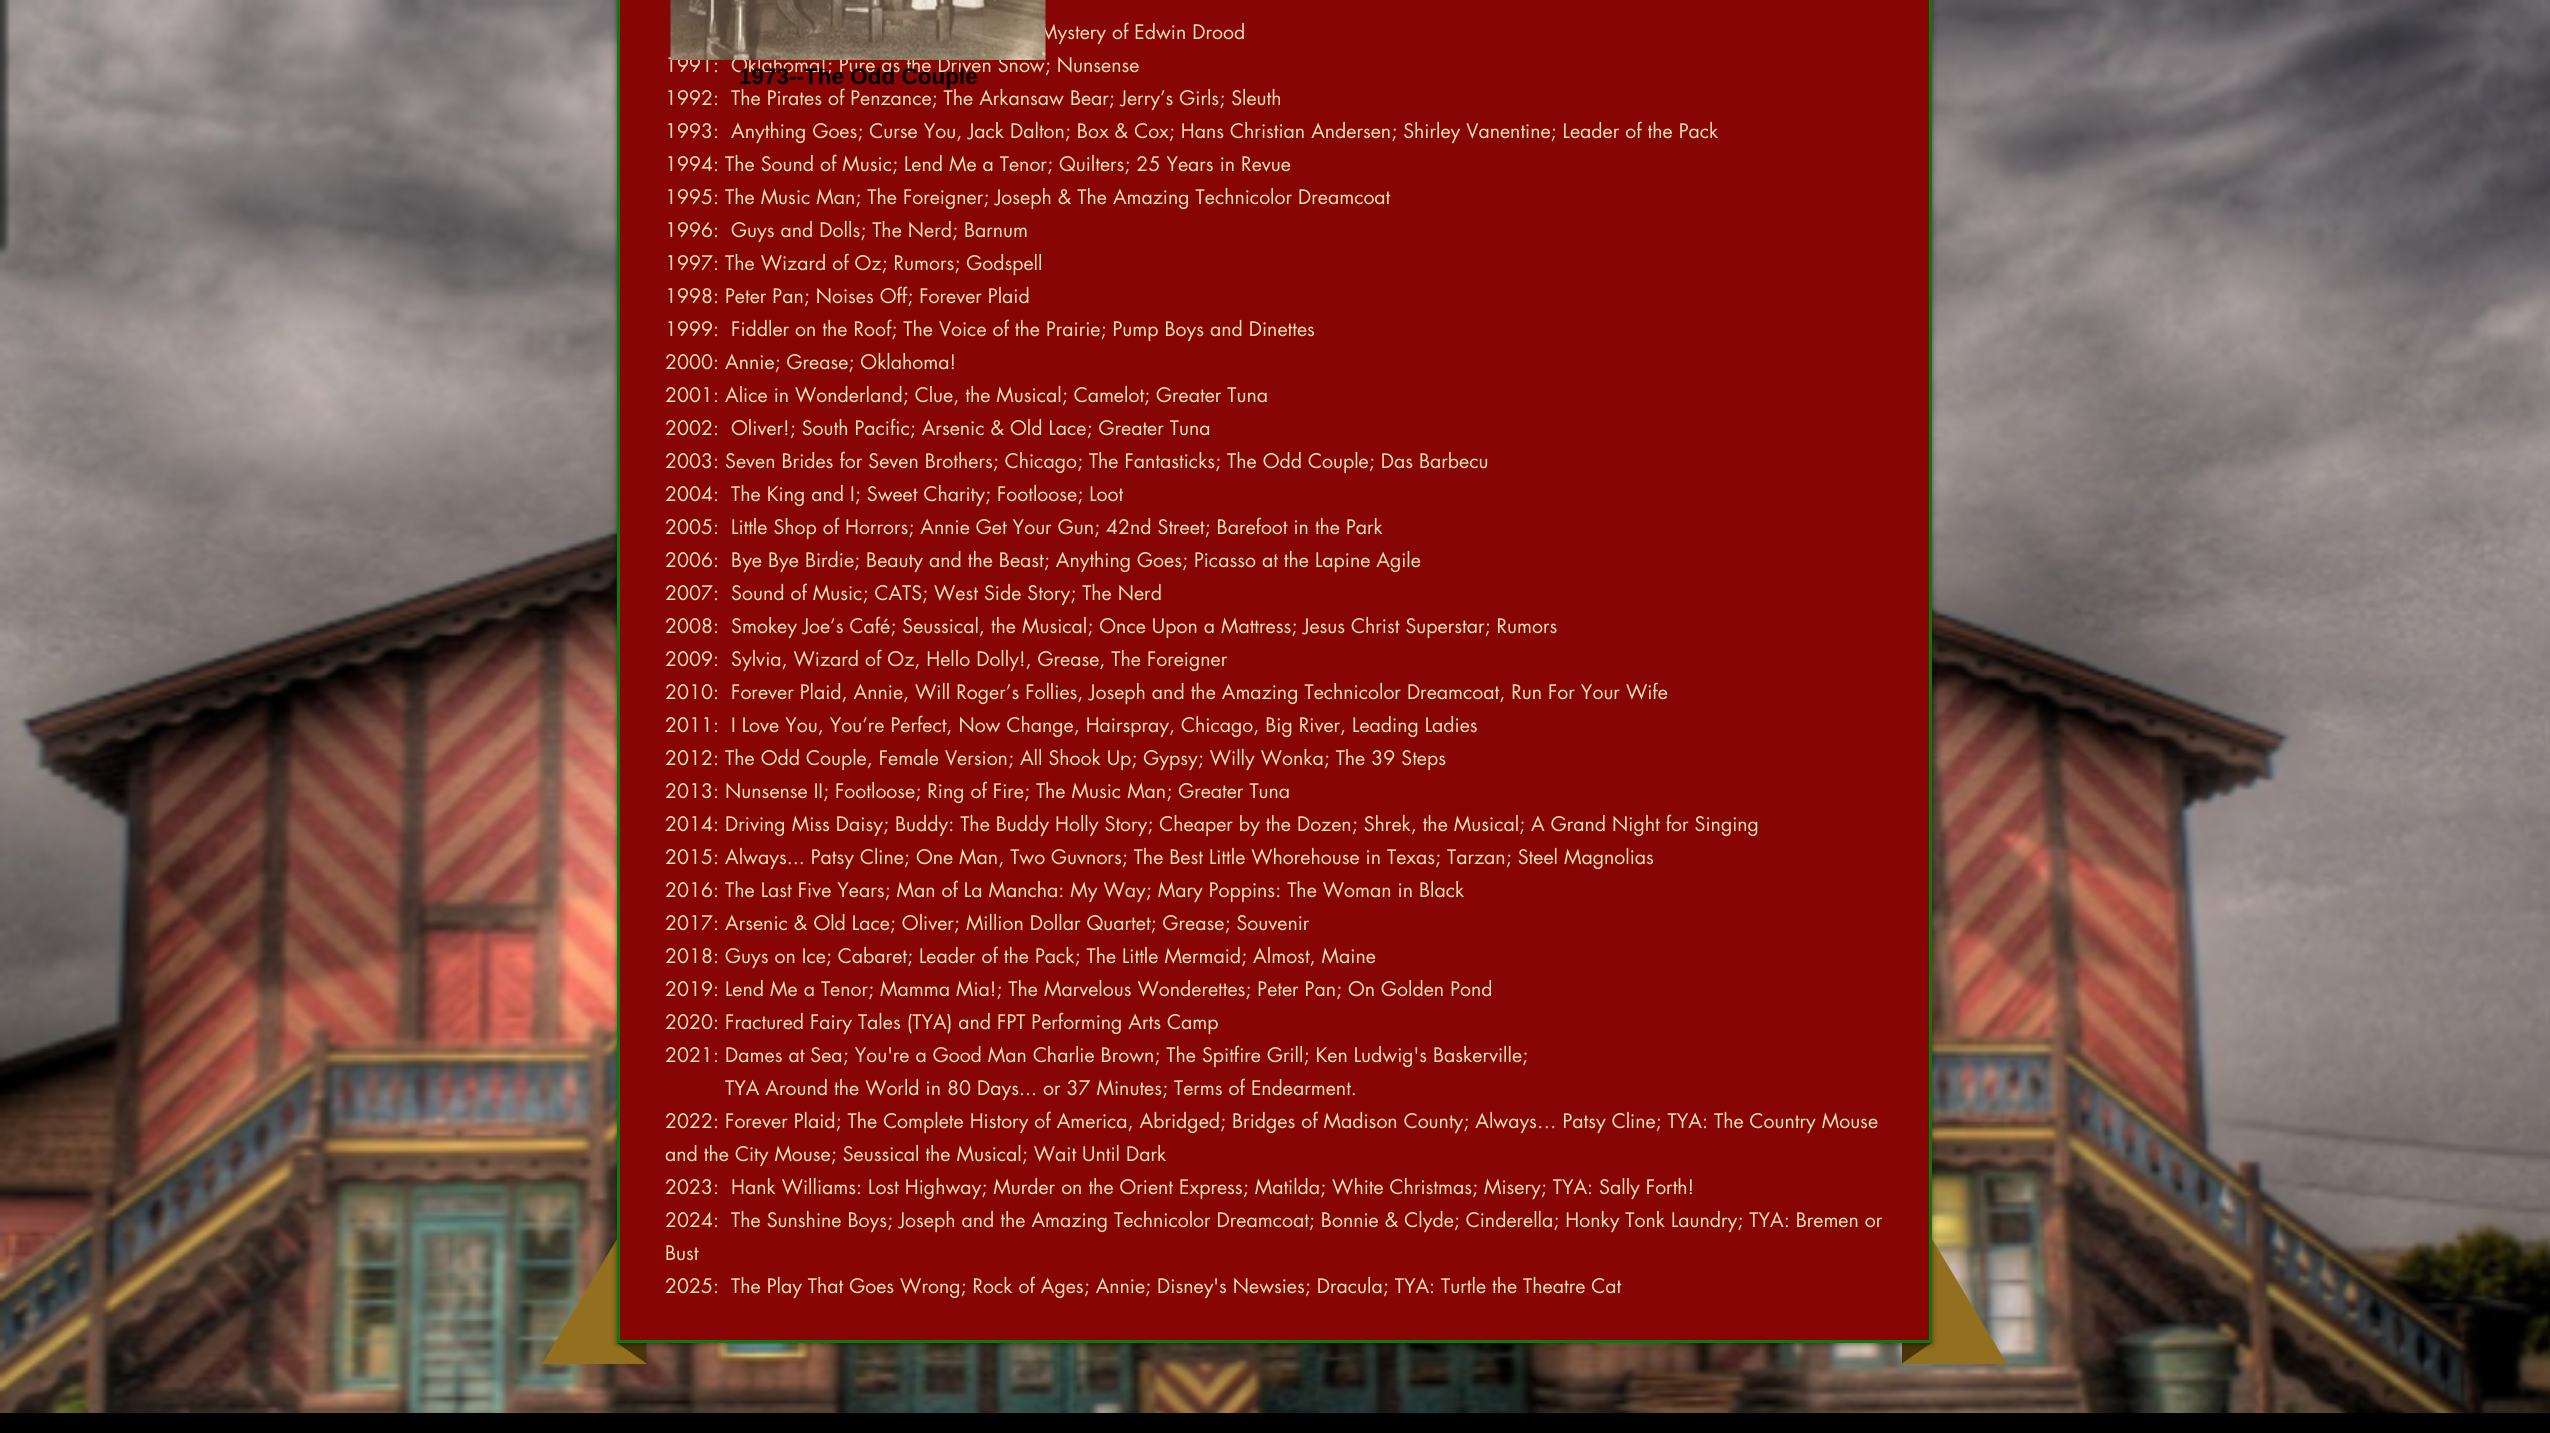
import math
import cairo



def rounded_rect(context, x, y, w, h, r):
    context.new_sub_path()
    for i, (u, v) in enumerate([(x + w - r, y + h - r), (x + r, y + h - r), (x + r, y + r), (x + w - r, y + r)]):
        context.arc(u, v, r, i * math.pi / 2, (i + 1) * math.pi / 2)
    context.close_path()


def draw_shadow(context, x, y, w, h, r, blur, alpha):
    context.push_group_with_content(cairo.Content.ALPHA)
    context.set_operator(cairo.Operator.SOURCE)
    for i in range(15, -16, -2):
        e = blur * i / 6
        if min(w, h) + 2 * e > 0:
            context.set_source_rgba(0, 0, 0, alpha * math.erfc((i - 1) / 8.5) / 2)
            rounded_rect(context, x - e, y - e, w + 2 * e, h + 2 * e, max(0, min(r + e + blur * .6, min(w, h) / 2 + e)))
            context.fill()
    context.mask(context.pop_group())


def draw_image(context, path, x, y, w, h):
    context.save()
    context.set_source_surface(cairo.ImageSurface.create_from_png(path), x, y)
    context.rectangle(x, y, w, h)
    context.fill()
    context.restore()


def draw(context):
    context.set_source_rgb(1, 1, 1)
    context.paint()
    draw_image(context, "images/1.png", 0, 0, 2550, 1413)
    context.set_source_rgb(147 / 255, 112 / 255, 31 / 255)
    context.new_path()
    context.move_to(646, 1364)
    context.line_to(542, 1364)
    context.line_to(632, 1214)
    context.line_to(646, 1214)
    context.close_path()
    context.fill()
    context.new_path()
    context.move_to(2007, 1364)
    context.line_to(1902, 1364)
    context.line_to(1902, 1214)
    context.line_to(1917, 1214)
    context.close_path()
    context.fill()
    context.set_source_rgb(73 / 255, 53 / 255, 8 / 255)
    context.new_path()
    context.move_to(646.5, 1342.5)
    context.line_to(646.5, 1363.5)
    context.line_to(616.5, 1342.5)
    context.close_path()
    context.fill()
    context.new_path()
    context.move_to(1902, 1363.5)
    context.line_to(1902, 1342.5)
    context.line_to(1932, 1342.5)
    context.close_path()
    context.fill()
    context.set_source_rgb(0, 0, 0)
    draw_shadow(context, 617, -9, 1315, 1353, 0, 3, 0.49)
    context.set_source_rgb(136 / 255, 5 / 255, 5 / 255)
    context.rectangle(618.5, -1.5, 1312, 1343)
    context.fill_preserve()
    context.set_source_rgb(14 / 255, 120 / 255, 11 / 255)
    context.set_line_width(3)
    context.stroke()
    context.set_source_rgb(0, 0, 0)
    context.rectangle(0, 1413, 2550, 20)
    context.fill()
    context.select_font_face("futura")
    context.set_font_size(19.5)
    context.set_source_rgb(243 / 255, 224 / 255, 179 / 255)
    context.move_to(1040, 39)
    context.show_text("Mystery of Edwin Drood")
    context.move_to(665, 72)
    context.show_text("1991:  Oklahoma!; Pure as the Driven Snow; Nunsense")
    context.move_to(665, 105)
    context.show_text("1992:  The Pirates of Penzance; The Arkansaw Bear; Jerry’s Girls; Sleuth")
    context.move_to(665, 138)
    context.show_text("1993:  Anything Goes; Curse You, Jack Dalton; Box & Cox; Hans Christian Andersen; Shirley Vanentine; Leader of the Pack")
    context.move_to(665, 171)
    context.show_text("1994: The Sound of Music; Lend Me a Tenor; Quilters; 25 Years in Revue")
    context.move_to(665, 204)
    context.show_text("1995: The Music Man; The Foreigner; Joseph & The Amazing Technicolor Dreamcoat")
    context.move_to(665, 237)
    context.show_text("1996:  Guys and Dolls; The Nerd; Barnum")
    context.move_to(665, 270)
    context.show_text("1997: The Wizard of Oz; Rumors; Godspell")
    context.move_to(665, 303)
    context.show_text("1998: Peter Pan; Noises Off; Forever Plaid")
    context.move_to(665, 336)
    context.show_text("1999:  Fiddler on the Roof; The Voice of the Prairie; Pump Boys and Dinettes")
    context.move_to(665, 369)
    context.show_text("2000: Annie; Grease; Oklahoma!")
    context.move_to(665, 402)
    context.show_text("2001: Alice in Wonderland; Clue, the Musical; Camelot; Greater Tuna")
    context.move_to(665, 435)
    context.show_text("2002:  Oliver!; South Pacific; Arsenic & Old Lace; Greater Tuna")
    context.move_to(665, 468)
    context.show_text("2003: Seven Brides for Seven Brothers; Chicago; The Fantasticks; The Odd Couple; Das Barbecu")
    context.move_to(665, 501)
    context.show_text("2004:  The King and I; Sweet Charity; Footloose; Loot")
    context.move_to(665, 534)
    context.show_text("2005:  Little Shop of Horrors; Annie Get Your Gun; 42nd Street; Barefoot in the Park")
    context.move_to(665, 567)
    context.show_text("2006:  Bye Bye Birdie; Beauty and the Beast; Anything Goes; Picasso at the Lapine Agile")
    context.move_to(665, 600)
    context.show_text("2007:  Sound of Music; CATS; West Side Story; The Nerd")
    context.move_to(665, 633)
    context.show_text("2008:  Smokey Joe’s Café; Seussical, the Musical; Once Upon a Mattress; Jesus Christ Superstar; Rumors")
    context.move_to(665, 666)
    context.show_text("2009:  Sylvia, Wizard of Oz, Hello Dolly!, Grease, The Foreigner")
    context.move_to(665, 699)
    context.show_text("2010:  Forever Plaid, Annie, Will Roger’s Follies, Joseph and the Amazing Technicolor Dreamcoat, Run For Your Wife")
    context.move_to(665, 732)
    context.show_text("2011:  I Love You, You’re Perfect, Now Change, Hairspray, Chicago, Big River, Leading Ladies")
    context.move_to(665, 765)
    context.show_text("2012: The Odd Couple, Female Version; All Shook Up; Gypsy; Willy Wonka; The 39 Steps")
    context.move_to(665, 798)
    context.show_text("2013: Nunsense II; Footloose; Ring of Fire; The Music Man; Greater Tuna")
    context.move_to(665, 831)
    context.show_text("2014: Driving Miss Daisy; Buddy: The Buddy Holly Story; Cheaper by the Dozen; Shrek, the Musical; A Grand Night for Singing")
    context.move_to(665, 864)
    context.show_text("2015: Always... Patsy Cline; One Man, Two Guvnors; The Best Little Whorehouse in Texas; Tarzan; Steel Magnolias")
    context.move_to(665, 897)
    context.show_text("2016: The Last Five Years; Man of La Mancha: My Way; Mary Poppins: The Woman in Black")
    context.move_to(665, 930)
    context.show_text("2017: Arsenic & Old Lace; Oliver; Million Dollar Quartet; Grease; Souvenir")
    context.move_to(665, 963)
    context.show_text("2018: Guys on Ice; Cabaret; Leader of the Pack; The Little Mermaid; Almost, Maine")
    context.move_to(665, 996)
    context.show_text("2019: Lend Me a Tenor; Mamma Mia!; The Marvelous Wonderettes; Peter Pan; On Golden Pond")
    context.move_to(665, 1029)
    context.show_text("2020: Fractured Fairy Tales (TYA) and FPT Performing Arts Camp")
    context.move_to(665, 1062)
    context.show_text("2021: Dames at Sea; You're a Good Man Charlie Brown; The Spitfire Grill; Ken Ludwig's Baskerville;")
    context.move_to(725, 1095)
    context.show_text("TYA Around the World in 80 Days... or 37 Minutes; Terms of Endearment.")
    context.move_to(665, 1128)
    context.show_text("2022: Forever Plaid; The Complete History of America, Abridged; Bridges of Madison County; Always… Patsy Cline; TYA: The Country Mouse")
    context.move_to(665, 1161)
    context.show_text("and the City Mouse; Seussical the Musical; Wait Until Dark")
    context.move_to(665, 1194)
    context.show_text("2023:  Hank Williams: Lost Highway; Murder on the Orient Express; Matilda; White Christmas; Misery; TYA: Sally Forth!")
    context.move_to(665, 1227)
    context.show_text("2024:  The Sunshine Boys; Joseph and the Amazing Technicolor Dreamcoat; Bonnie & Clyde; Cinderella; Honky Tonk Laundry; TYA: Bremen or")
    context.move_to(665, 1260)
    context.show_text("Bust")
    context.move_to(665, 1293)
    context.show_text("2025:  The Play That Goes Wrong; Rock of Ages; Annie; Disney's Newsies; Dracula; TYA: Turtle the Theatre Cat")
    draw_image(context, "images/2.png", 670, 0, 376, 60)
    context.select_font_face("Liberation Sans", cairo.FontSlant.NORMAL, cairo.FontWeight.BOLD)
    context.set_font_size(22.5)
    context.set_source_rgb(0, 0, 0)
    context.move_to(739, 84)
    context.show_text("1973--The Odd Couple")


surface = cairo.ImageSurface(cairo.Format.RGB24, 2550, 1433)
context = cairo.Context(surface)
options = cairo.FontOptions()
options.set_hint_metrics(cairo.HintMetrics.OFF)
options.set_hint_style(cairo.HintStyle.NONE)
context.set_font_options(options)
context.set_miter_limit(4)
draw(context)
surface.write_to_png("out.png")
